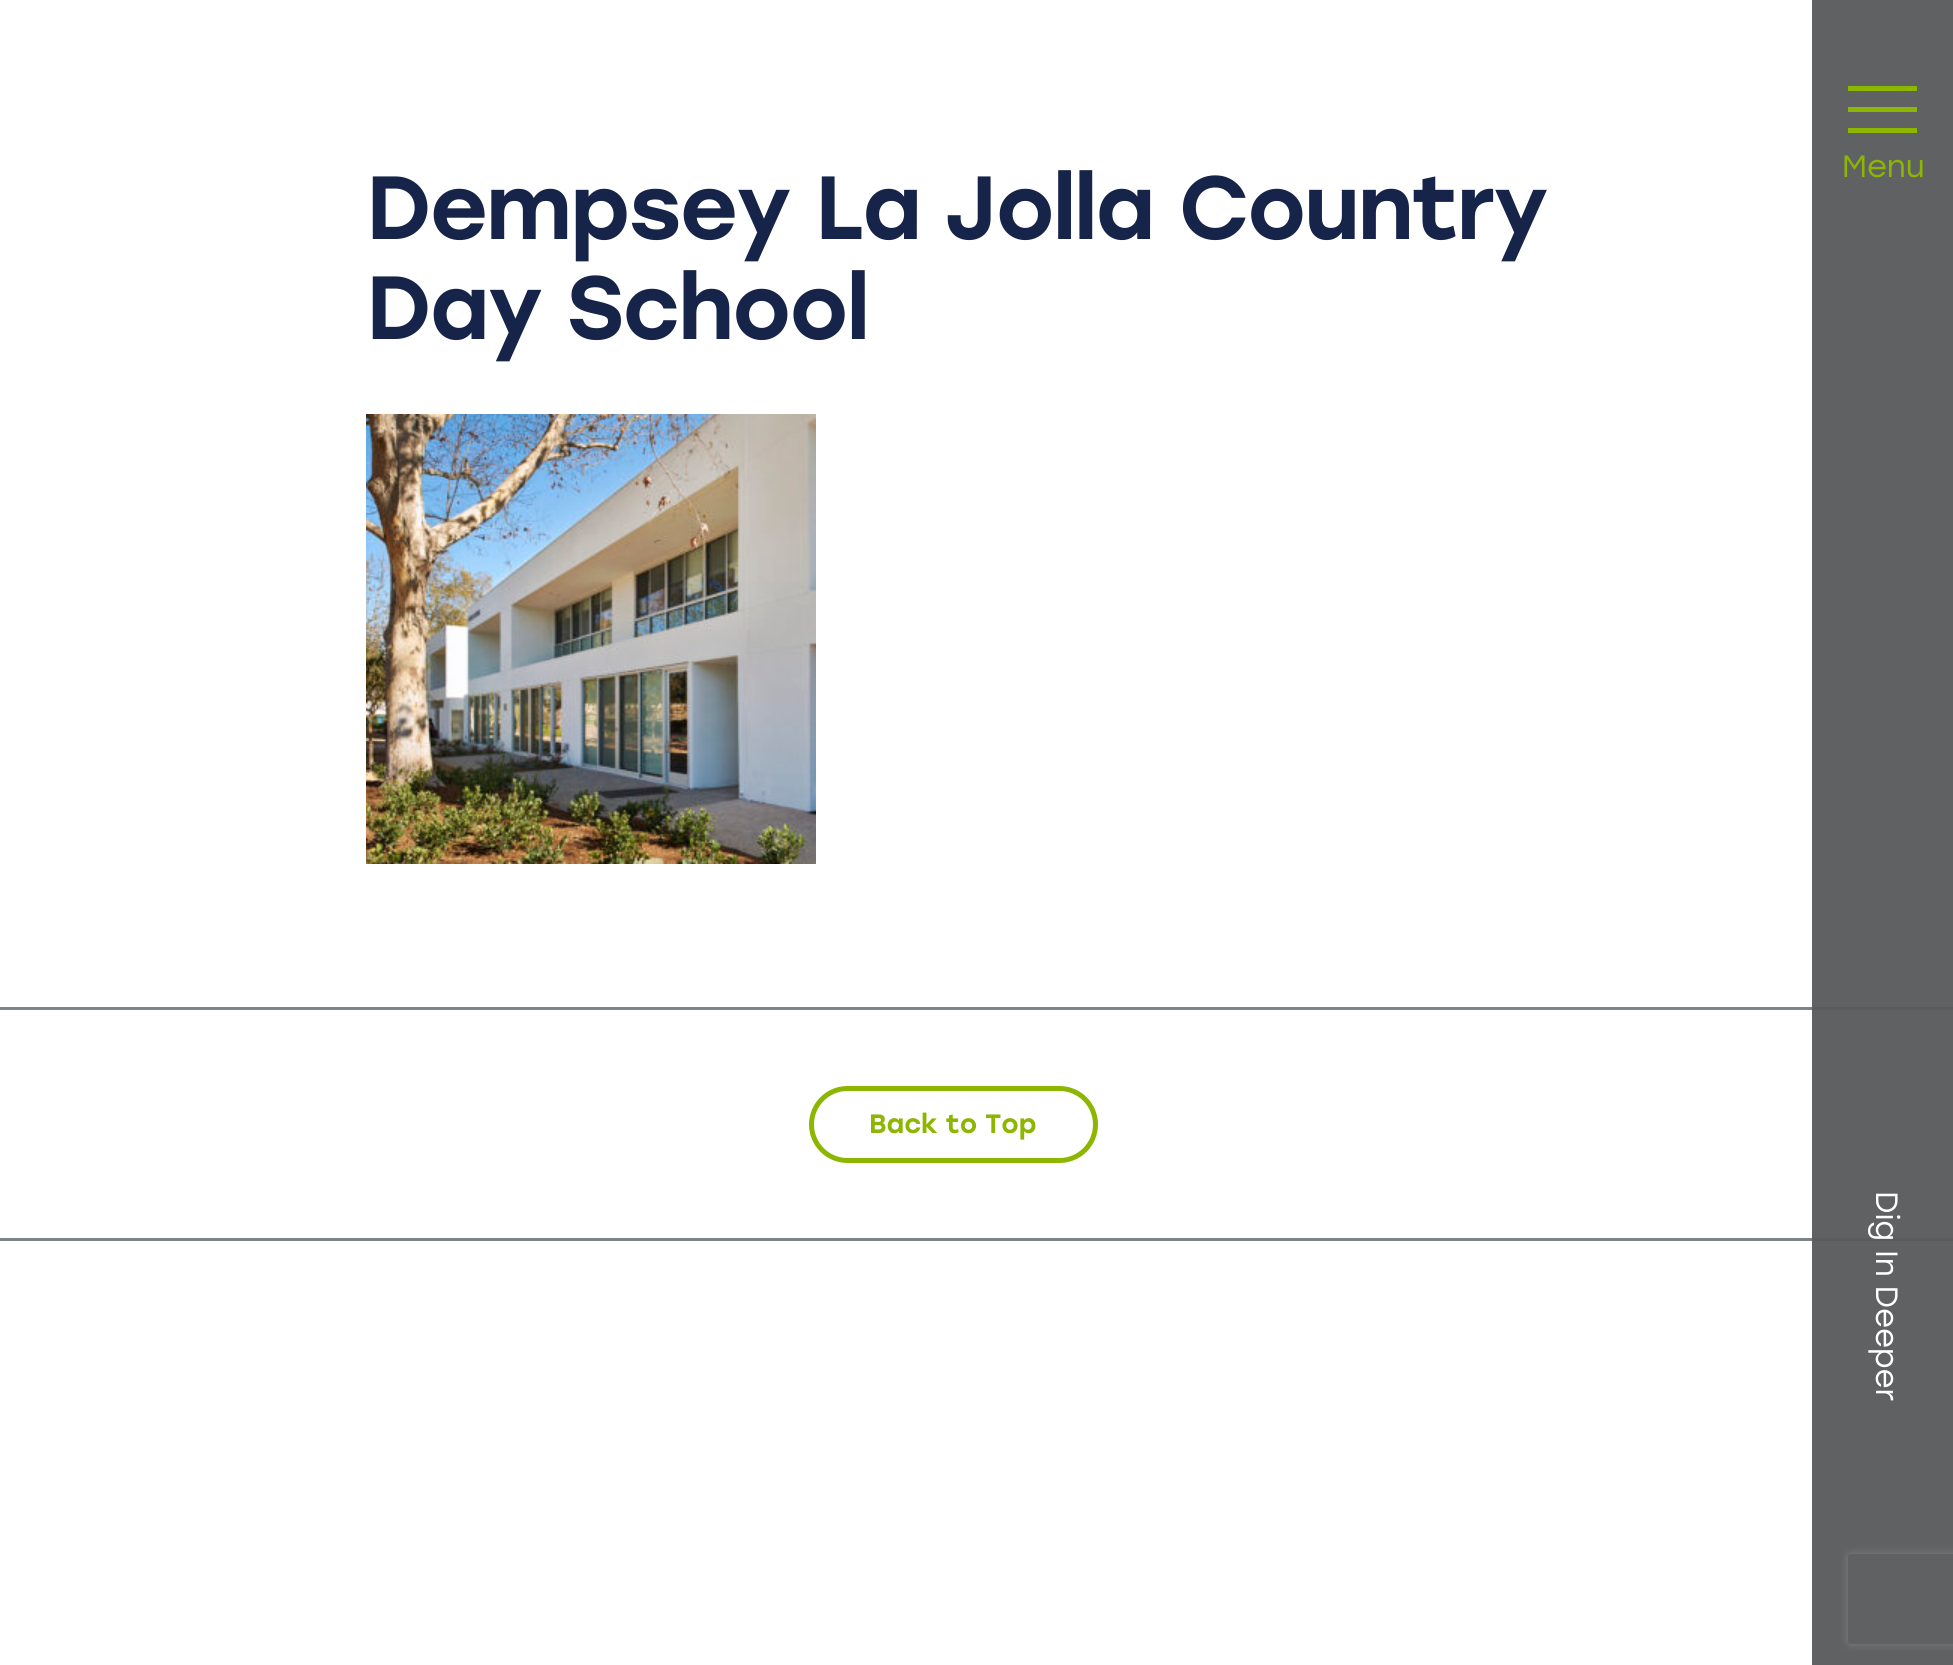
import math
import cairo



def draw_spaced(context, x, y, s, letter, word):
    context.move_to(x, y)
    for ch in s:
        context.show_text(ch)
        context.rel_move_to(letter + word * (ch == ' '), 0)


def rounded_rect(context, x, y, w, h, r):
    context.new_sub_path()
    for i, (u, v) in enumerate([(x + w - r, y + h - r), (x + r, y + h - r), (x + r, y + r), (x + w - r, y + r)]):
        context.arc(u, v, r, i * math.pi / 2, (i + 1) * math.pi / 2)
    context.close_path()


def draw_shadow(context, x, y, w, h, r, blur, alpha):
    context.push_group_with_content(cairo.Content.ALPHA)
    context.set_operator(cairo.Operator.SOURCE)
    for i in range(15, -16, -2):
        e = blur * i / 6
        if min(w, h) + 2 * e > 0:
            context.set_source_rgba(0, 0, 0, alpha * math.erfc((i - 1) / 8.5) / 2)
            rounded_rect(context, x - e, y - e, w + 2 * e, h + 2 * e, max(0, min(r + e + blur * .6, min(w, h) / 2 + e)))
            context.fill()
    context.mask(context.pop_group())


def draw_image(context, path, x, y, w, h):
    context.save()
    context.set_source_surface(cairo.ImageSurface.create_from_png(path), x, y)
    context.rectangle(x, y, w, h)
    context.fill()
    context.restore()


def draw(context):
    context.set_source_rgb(1, 1, 1)
    context.paint()
    context.set_source_rgb(96 / 255, 97 / 255, 99 / 255)
    context.rectangle(1812, 0, 141, 1665)
    context.fill()
    context.set_source_rgb(123 / 255, 132 / 255, 136 / 255)
    context.rectangle(0, 1007, 1812, 3)
    context.fill()
    context.set_source_rgb(90 / 255, 91 / 255, 93 / 255)
    context.rectangle(1812, 1007, 141, 3)
    context.fill()
    draw_image(context, "images/1.png", 366, 414, 450, 450)
    context.set_source_rgb(123 / 255, 132 / 255, 136 / 255)
    context.rectangle(0, 1238, 1812, 3)
    context.fill()
    context.set_source_rgb(90 / 255, 91 / 255, 93 / 255)
    context.rectangle(1812, 1238, 141, 3)
    context.fill()
    rounded_rect(context, 811.5, 1088.5, 284, 72, 36)
    context.set_source_rgb(141 / 255, 182 / 255, 0)
    context.set_line_width(5)
    context.stroke()
    context.rectangle(1848, 86, 69, 5)
    context.fill()
    context.rectangle(1848, 107, 69, 5)
    context.fill()
    context.rectangle(1848, 128, 69, 5)
    context.fill()
    context.save()
    context.set_fill_rule(cairo.FillRule.EVEN_ODD)
    context.new_path()
    context.move_to(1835, 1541)
    context.line_to(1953, 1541)
    context.line_to(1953, 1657)
    context.line_to(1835, 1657)
    context.close_path()
    context.move_to(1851, 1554)
    context.line_to(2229, 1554)
    context.curve_to(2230.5, 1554, 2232, 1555.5, 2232, 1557)
    context.line_to(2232, 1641)
    context.curve_to(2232, 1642.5, 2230.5, 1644, 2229, 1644)
    context.line_to(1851, 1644)
    context.curve_to(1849.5, 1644, 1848, 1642.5, 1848, 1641)
    context.line_to(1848, 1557)
    context.curve_to(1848, 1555.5, 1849.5, 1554, 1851, 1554)
    context.close_path()
    context.clip()
    context.set_source_rgb(128 / 255, 128 / 255, 128 / 255)
    draw_shadow(context, 1848, 1554, 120, 90, 3, 4, 1)
    context.restore()
    context.select_font_face("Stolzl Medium")
    context.set_font_size(89.4)
    context.set_source_rgb(22 / 255, 36 / 255, 73 / 255)
    draw_spaced(context, 366, 239, "Dempsey La Jolla Country", -1.75, 0)
    draw_spaced(context, 366, 339, "Day School", -1.75, 0)
    context.set_font_size(26.5)
    context.set_source_rgb(141 / 255, 182 / 255, 0)
    context.move_to(869, 1133)
    context.show_text("Back to Top")
    context.select_font_face("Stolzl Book")
    context.set_font_size(30.75)
    draw_spaced(context, 1842, 177, "Menu", -0.25, 0)
    context.set_source_rgb(1, 1, 1)
    context.save()
    context.translate(1876, 1191)
    context.rotate(90 * math.pi / 180)
    draw_spaced(context, 0, 0, "Dig In Deeper", -0.25, 0)
    context.restore()


surface = cairo.ImageSurface(cairo.Format.RGB24, 1953, 1665)
context = cairo.Context(surface)
options = cairo.FontOptions()
options.set_hint_metrics(cairo.HintMetrics.OFF)
options.set_hint_style(cairo.HintStyle.NONE)
context.set_font_options(options)
context.set_miter_limit(4)
draw(context)
surface.write_to_png("out.png")
